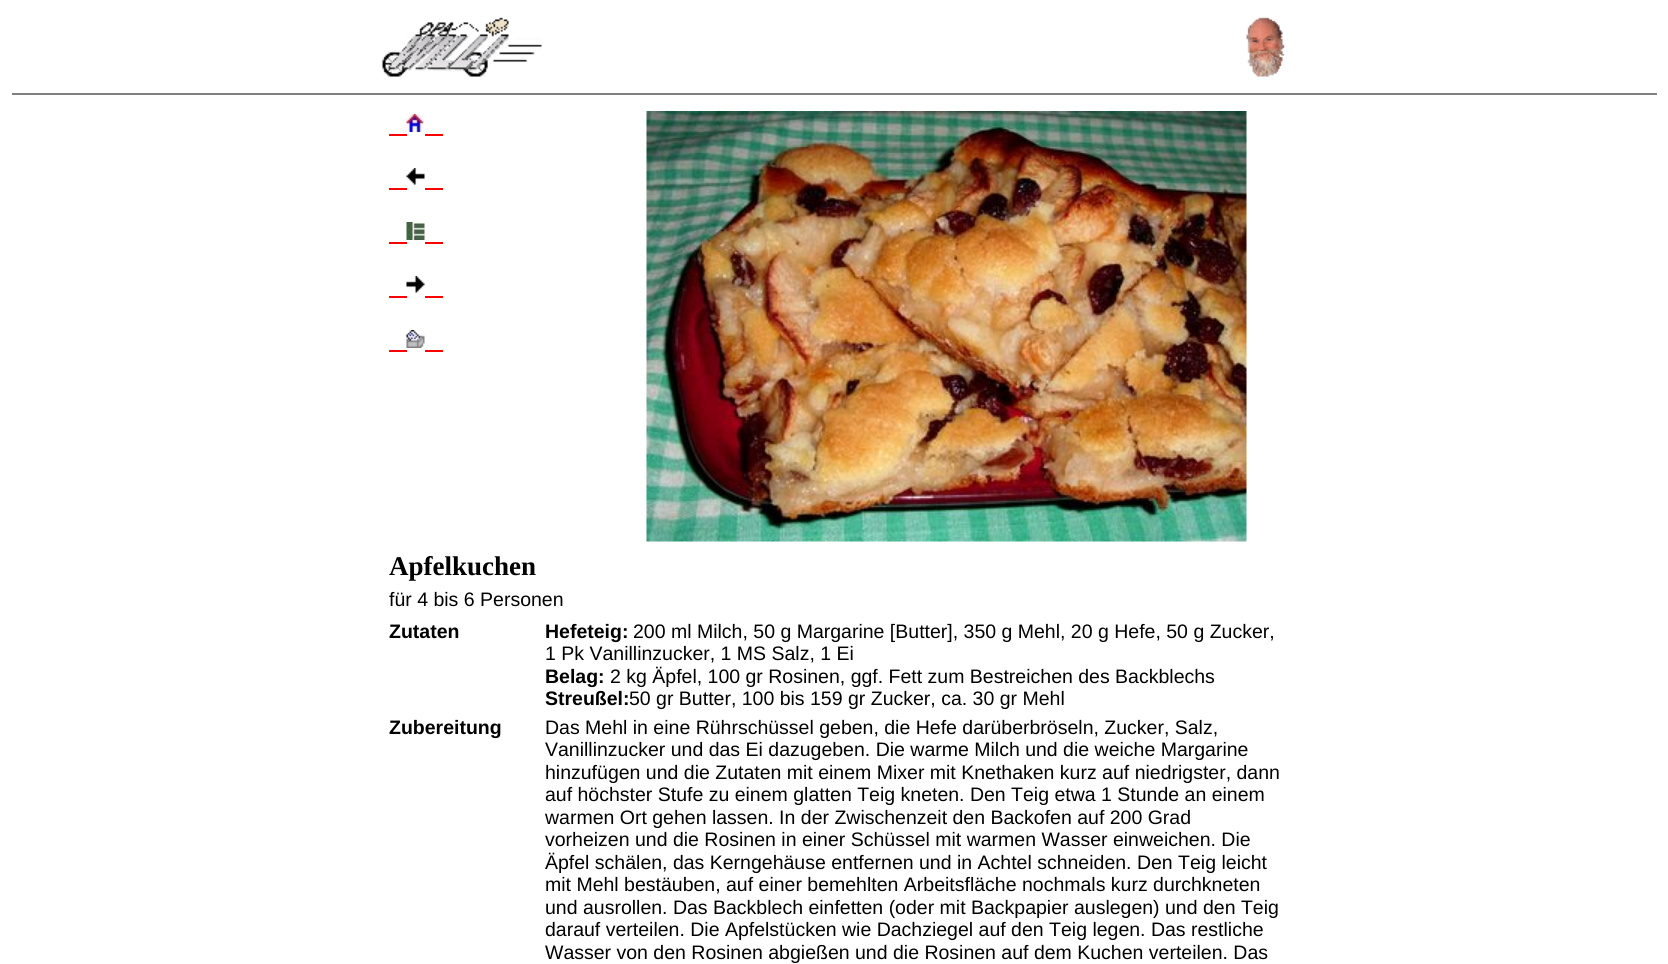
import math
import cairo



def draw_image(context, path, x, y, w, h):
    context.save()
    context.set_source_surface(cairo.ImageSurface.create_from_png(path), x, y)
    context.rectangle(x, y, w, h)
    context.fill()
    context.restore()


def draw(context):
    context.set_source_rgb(1, 1, 1)
    context.paint()
    draw_image(context, "images/1.png", 381, 17, 161, 60)
    draw_image(context, "images/2.png", 1246, 17, 39, 60)
    context.set_source_rgb(128 / 255, 128 / 255, 128 / 255)
    context.rectangle(12, 93, 1645, 2)
    context.fill()
    draw_image(context, "images/3.png", 406, 114, 19, 18)
    context.set_source_rgb(1, 0, 0)
    context.rectangle(389, 134, 18, 2)
    context.fill()
    context.rectangle(425, 134, 18, 2)
    context.fill()
    draw_image(context, "images/4.png", 406, 168, 19, 17)
    context.rectangle(389, 188, 18, 2)
    context.fill()
    context.rectangle(425, 188, 18, 2)
    context.fill()
    draw_image(context, "images/5.png", 406, 222, 19, 18)
    context.rectangle(389, 242, 18, 2)
    context.fill()
    context.rectangle(425, 242, 18, 2)
    context.fill()
    draw_image(context, "images/6.png", 406, 276, 19, 17)
    context.rectangle(389, 296, 18, 2)
    context.fill()
    context.rectangle(425, 296, 18, 2)
    context.fill()
    draw_image(context, "images/7.png", 406, 330, 19, 18)
    context.rectangle(389, 350, 18, 2)
    context.fill()
    context.rectangle(425, 350, 18, 2)
    context.fill()
    draw_image(context, "images/8.png", 646, 111, 601, 431)
    context.select_font_face("Liberation Serif", cairo.FontSlant.NORMAL, cairo.FontWeight.BOLD)
    context.set_font_size(27)
    context.set_source_rgb(0, 0, 0)
    context.move_to(389, 575)
    context.show_text("Apfelkuchen")
    context.select_font_face("Liberation Sans")
    context.set_font_size(19.5)
    context.move_to(389, 606)
    context.show_text("für 4 bis 6 Personen")
    context.select_font_face("Liberation Sans", cairo.FontSlant.NORMAL, cairo.FontWeight.BOLD)
    context.move_to(389, 638)
    context.show_text("Zutaten")
    context.move_to(545, 638)
    context.show_text("Hefeteig:")
    context.select_font_face("Liberation Sans")
    context.move_to(633, 638)
    context.show_text("200 ml Milch, 50 g Margarine [Butter], 350 g Mehl, 20 g Hefe, 50 g Zucker,")
    context.move_to(545, 660)
    context.show_text("1 Pk Vanillinzucker, 1 MS Salz, 1 Ei")
    context.select_font_face("Liberation Sans", cairo.FontSlant.NORMAL, cairo.FontWeight.BOLD)
    context.move_to(545, 683)
    context.show_text("Belag:")
    context.select_font_face("Liberation Sans")
    context.move_to(610, 683)
    context.show_text("2 kg Äpfel, 100 gr Rosinen, ggf. Fett zum Bestreichen des Backblechs")
    context.select_font_face("Liberation Sans", cairo.FontSlant.NORMAL, cairo.FontWeight.BOLD)
    context.move_to(545, 705)
    context.show_text("Streußel:")
    context.select_font_face("Liberation Sans")
    context.move_to(629, 705)
    context.show_text("50 gr Butter, 100 bis 159 gr Zucker, ca. 30 gr Mehl")
    context.select_font_face("Liberation Sans", cairo.FontSlant.NORMAL, cairo.FontWeight.BOLD)
    context.move_to(389, 734)
    context.show_text("Zubereitung")
    context.select_font_face("Liberation Sans")
    context.move_to(545, 734)
    context.show_text("Das Mehl in eine Rührschüssel geben, die Hefe darüberbröseln, Zucker, Salz,")
    context.move_to(545, 756)
    context.show_text("Vanillinzucker und das Ei dazugeben. Die warme Milch und die weiche Margarine")
    context.move_to(545, 779)
    context.show_text("hinzufügen und die Zutaten mit einem Mixer mit Knethaken kurz auf niedrigster, dann")
    context.move_to(545, 801)
    context.show_text("auf höchster Stufe zu einem glatten Teig kneten. Den Teig etwa 1 Stunde an einem")
    context.move_to(545, 824)
    context.show_text("warmen Ort gehen lassen. In der Zwischenzeit den Backofen auf 200 Grad")
    context.move_to(545, 846)
    context.show_text("vorheizen und die Rosinen in einer Schüssel mit warmen Wasser einweichen. Die")
    context.move_to(545, 869)
    context.show_text("Äpfel schälen, das Kerngehäuse entfernen und in Achtel schneiden. Den Teig leicht")
    context.move_to(545, 891)
    context.show_text("mit Mehl bestäuben, auf einer bemehlten Arbeitsfläche nochmals kurz durchkneten")
    context.move_to(545, 914)
    context.show_text("und ausrollen. Das Backblech einfetten (oder mit Backpapier auslegen) und den Teig")
    context.move_to(545, 936)
    context.show_text("darauf verteilen. Die Apfelstücken wie Dachziegel auf den Teig legen. Das restliche")
    context.move_to(545, 959)
    context.show_text("Wasser von den Rosinen abgießen und die Rosinen auf dem Kuchen verteilen. Das")


surface = cairo.ImageSurface(cairo.Format.RGB24, 1668, 964)
context = cairo.Context(surface)
options = cairo.FontOptions()
options.set_hint_metrics(cairo.HintMetrics.OFF)
options.set_hint_style(cairo.HintStyle.NONE)
context.set_font_options(options)
context.set_miter_limit(4)
draw(context)
surface.write_to_png("out.png")
